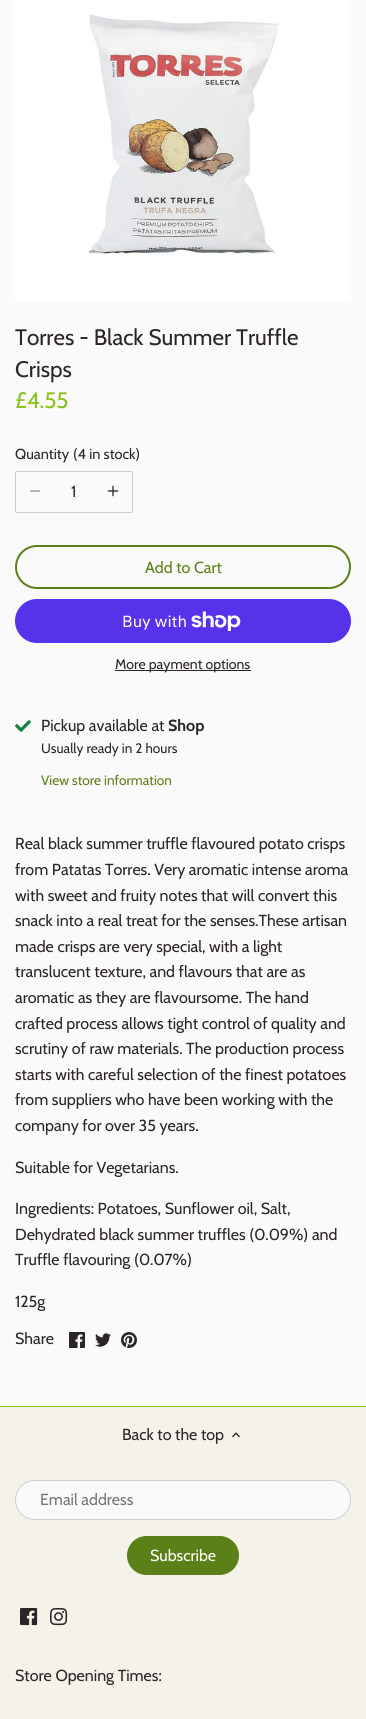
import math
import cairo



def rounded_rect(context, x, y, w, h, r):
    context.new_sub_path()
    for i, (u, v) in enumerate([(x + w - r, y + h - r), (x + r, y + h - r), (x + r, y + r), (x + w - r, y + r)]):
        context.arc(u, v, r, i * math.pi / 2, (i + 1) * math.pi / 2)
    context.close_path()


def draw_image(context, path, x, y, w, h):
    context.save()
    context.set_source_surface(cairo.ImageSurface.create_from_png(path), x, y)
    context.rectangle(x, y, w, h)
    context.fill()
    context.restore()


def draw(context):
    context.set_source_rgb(244 / 255, 242 / 255, 233 / 255)
    context.paint()
    context.set_source_rgb(250 / 255, 250 / 255, 250 / 255)
    context.rectangle(0, 0, 366, 1406)
    context.fill()
    draw_image(context, "images/1.png", 15, 0, 336, 302)
    rounded_rect(context, 15.5, 471.5, 117, 41, 1.5)
    context.set_source_rgb(207 / 255, 205 / 255, 206 / 255)
    context.set_line_width(1)
    context.stroke()
    context.new_path()
    context.move_to(30.5, 491)
    context.line_to(39.5, 491)
    context.set_source_rgb(147 / 255, 144 / 255, 145 / 255)
    context.set_line_width(1.3)
    context.set_line_cap(cairo.LineCap.ROUND)
    context.set_line_join(cairo.LineJoin.ROUND)
    context.stroke()
    draw_image(context, "images/2.png", 107, 485, 12, 12)
    rounded_rect(context, 16, 546, 334, 42, 21)
    context.set_source_rgb(92 / 255, 128 / 255, 24 / 255)
    context.set_line_width(2)
    context.set_line_cap(cairo.LineCap.BUTT)
    context.set_line_join(cairo.LineJoin.MITER)
    context.stroke()
    context.set_source_rgb(84 / 255, 51 / 255, 235 / 255)
    rounded_rect(context, 15, 599, 336, 44, 22)
    context.fill()
    draw_image(context, "images/3.png", 191, 611, 50, 20)
    context.set_source_rgb(44 / 255, 37 / 255, 40 / 255)
    context.rectangle(115, 670, 136, 1)
    context.fill()
    draw_image(context, "images/4.png", 15, 720, 16, 12)
    draw_image(context, "images/5.png", 69, 1332, 16, 16)
    draw_image(context, "images/6.png", 95, 1333, 16, 14)
    draw_image(context, "images/7.png", 121, 1332, 16, 16)
    context.set_source_rgb(137 / 255, 194 / 255, 30 / 255)
    context.rectangle(0, 1406, 366, 1)
    context.fill()
    draw_image(context, "images/8.png", 232, 1432, 8, 6)
    context.set_source_rgb(250 / 255, 250 / 255, 250 / 255)
    rounded_rect(context, 15.5, 1480.5, 335, 39, 19.5)
    context.fill_preserve()
    context.set_source_rgb(207 / 255, 205 / 255, 206 / 255)
    context.set_line_width(1)
    context.stroke()
    context.set_source_rgb(92 / 255, 128 / 255, 24 / 255)
    rounded_rect(context, 127.5, 1536.5, 111, 38, 19)
    context.fill_preserve()
    context.stroke()
    draw_image(context, "images/9.png", 20, 1608, 18, 18)
    draw_image(context, "images/10.png", 50, 1608, 18, 18)
    context.select_font_face("Cabin")
    context.set_font_size(22.4)
    context.set_source_rgb(44 / 255, 37 / 255, 40 / 255)
    context.move_to(15, 345)
    context.show_text("Torres - Black Summer Truffle")
    context.move_to(15, 377)
    context.show_text("Crisps")
    context.set_source_rgb(137 / 255, 194 / 255, 30 / 255)
    context.move_to(15, 408)
    context.show_text("£4.55")
    context.set_font_size(14.5)
    context.set_source_rgb(44 / 255, 37 / 255, 40 / 255)
    context.move_to(15, 459)
    context.show_text("Quantity")
    context.move_to(73, 459)
    context.show_text("(4 in stock)")
    context.set_font_size(16)
    context.move_to(71, 497)
    context.show_text("1")
    context.set_source_rgb(92 / 255, 128 / 255, 24 / 255)
    context.move_to(145, 573)
    context.show_text("Add to Cart")
    context.select_font_face("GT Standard")
    context.set_source_rgb(1, 1, 1)
    context.move_to(122, 627)
    context.show_text("Buy with")
    context.select_font_face("Cabin")
    context.set_font_size(14)
    context.set_source_rgb(44 / 255, 37 / 255, 40 / 255)
    context.move_to(115, 669)
    context.show_text("More payment options")
    context.set_font_size(16)
    context.move_to(41, 731)
    context.show_text("Pickup available at")
    context.select_font_face("Cabin", cairo.FontSlant.NORMAL, cairo.FontWeight.BOLD)
    context.move_to(168, 731)
    context.show_text("Shop")
    context.select_font_face("Cabin")
    context.set_font_size(13.6)
    context.move_to(41, 753)
    context.show_text("Usually ready in 2 hours")
    context.set_source_rgb(92 / 255, 128 / 255, 24 / 255)
    context.move_to(41, 785)
    context.show_text("View store information")
    context.set_font_size(16)
    context.set_source_rgb(44 / 255, 37 / 255, 40 / 255)
    context.move_to(15, 849)
    context.show_text("Real black summer truffle flavoured potato crisps")
    context.move_to(15, 875)
    context.show_text("from Patatas Torres. Very aromatic intense aroma")
    context.move_to(15, 901)
    context.show_text("with sweet and fruity notes that will convert this")
    context.move_to(15, 926)
    context.show_text("snack into a real treat for the senses.These artisan")
    context.move_to(15, 952)
    context.show_text("made crisps are very special, with a light")
    context.move_to(15, 977)
    context.show_text("translucent texture, and flavours that are as")
    context.move_to(15, 1003)
    context.show_text("aromatic as they are flavoursome. The hand")
    context.move_to(15, 1029)
    context.show_text("crafted process allows tight control of quality and")
    context.move_to(15, 1054)
    context.show_text("scrutiny of raw materials. The production process")
    context.move_to(15, 1080)
    context.show_text("starts with careful selection of the finest potatoes")
    context.move_to(15, 1105)
    context.show_text("from suppliers who have been working with the")
    context.move_to(15, 1131)
    context.show_text("company for over 35 years.")
    context.move_to(15, 1173)
    context.show_text("Suitable for Vegetarians.")
    context.move_to(15, 1214)
    context.show_text("Ingredients: Potatoes, Sunflower oil, Salt,")
    context.move_to(15, 1240)
    context.show_text("Dehydrated black summer truffles (0.09%) and")
    context.move_to(15, 1265)
    context.show_text("Truffle flavouring (0.07%)")
    context.move_to(15, 1307)
    context.show_text("125g")
    context.move_to(15, 1344)
    context.show_text("Share")
    context.move_to(122, 1440)
    context.show_text("Back to the top")
    context.set_source_rgb(117 / 255, 117 / 255, 117 / 255)
    context.move_to(40, 1505)
    context.show_text("Email address")
    context.set_source_rgb(1, 1, 1)
    context.move_to(150, 1561)
    context.show_text("Subscribe")
    context.set_source_rgb(44 / 255, 37 / 255, 40 / 255)
    context.move_to(15, 1681)
    context.show_text("Store Opening Times:")


surface = cairo.ImageSurface(cairo.Format.RGB24, 366, 1719)
context = cairo.Context(surface)
options = cairo.FontOptions()
options.set_hint_metrics(cairo.HintMetrics.OFF)
options.set_hint_style(cairo.HintStyle.NONE)
context.set_font_options(options)
context.set_miter_limit(4)
draw(context)
surface.write_to_png("out.png")
